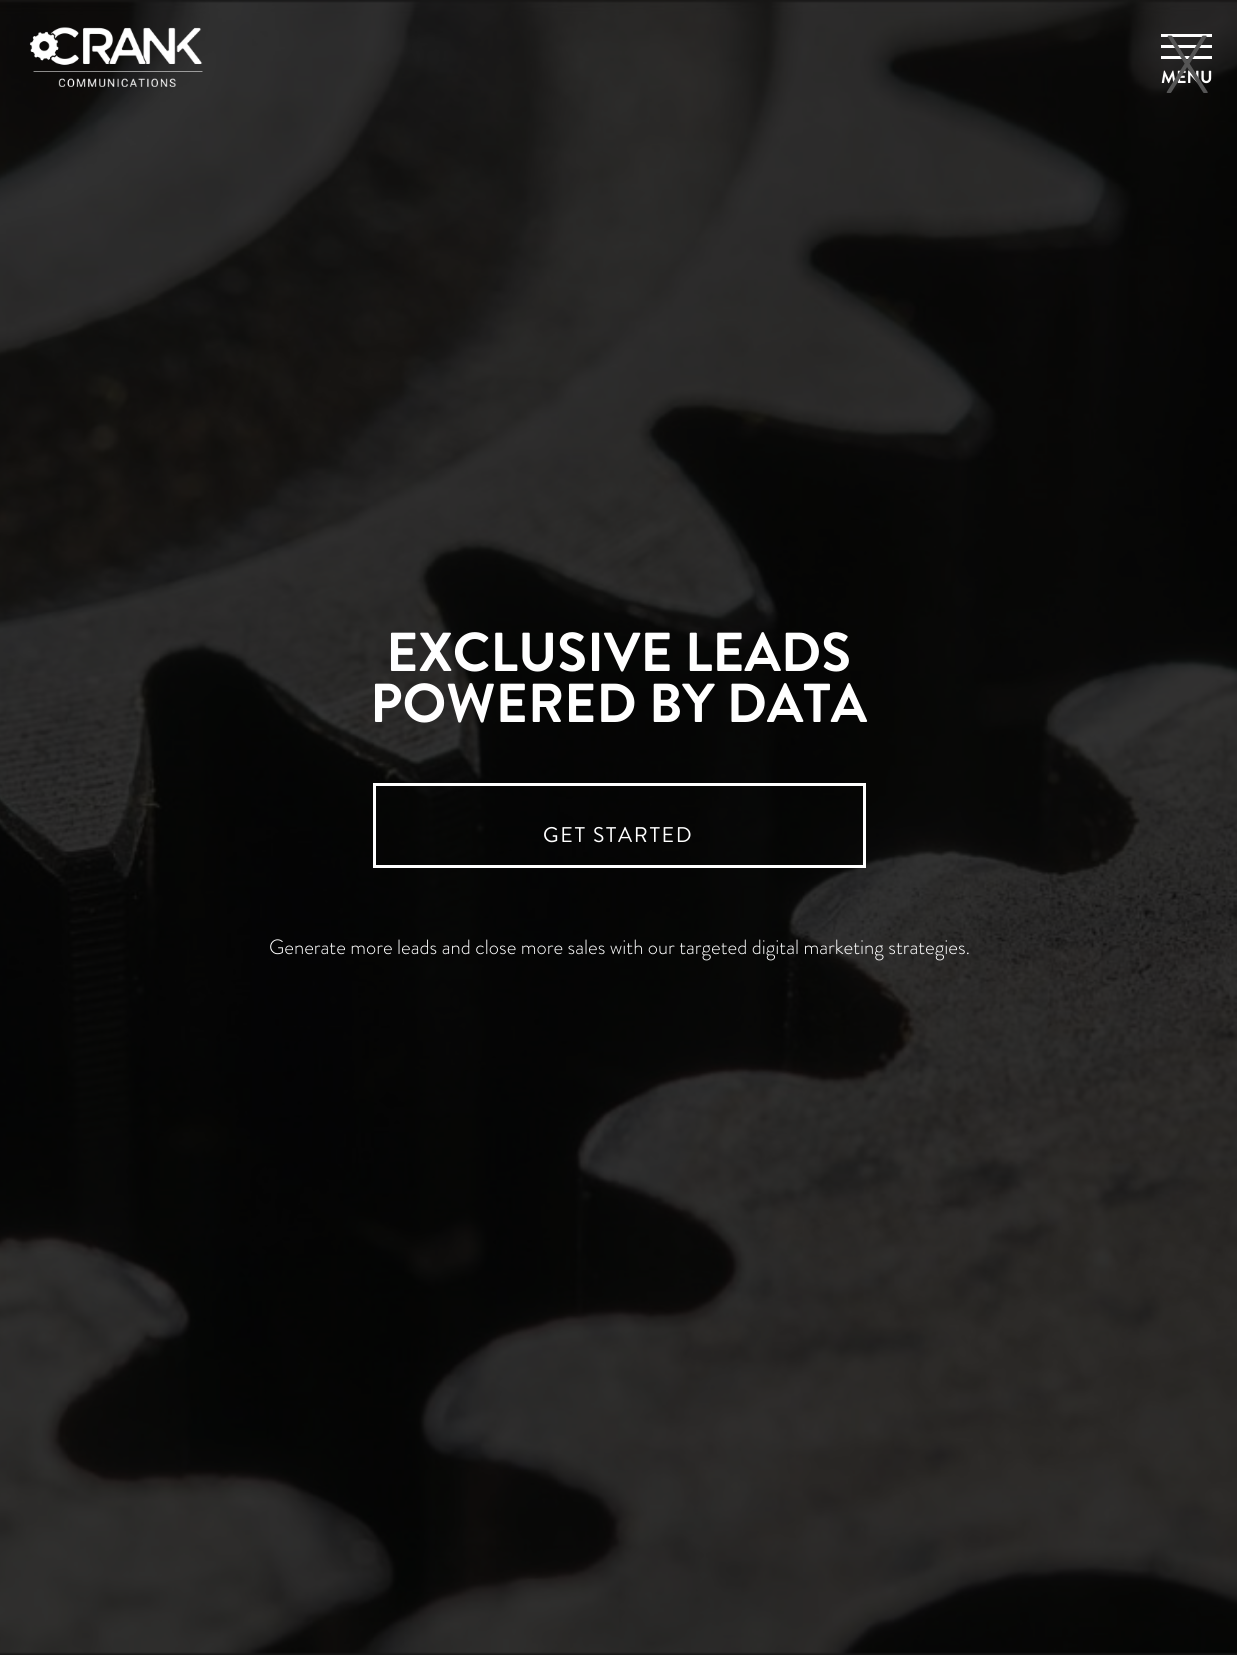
import math
import cairo



def draw_spaced(context, x, y, s, letter, word):
    context.move_to(x, y)
    for ch in s:
        context.show_text(ch)
        context.rel_move_to(letter + word * (ch == ' '), 0)


def draw_image(context, path, x, y, w, h):
    context.save()
    context.set_source_surface(cairo.ImageSurface.create_from_png(path), x, y)
    context.rectangle(x, y, w, h)
    context.fill()
    context.restore()


def draw(context):
    context.set_source_rgb(0, 0, 0)
    context.paint()
    draw_image(context, "images/2.png", 0, 0, 1237, 1655)
    draw_image(context, "images/1.png", 29, 27, 174, 60)
    context.set_source_rgb(1, 1, 1)
    context.rectangle(1161, 34, 51, 3)
    context.fill()
    context.rectangle(1161, 45, 51, 3)
    context.fill()
    context.rectangle(1161, 56, 51, 3)
    context.fill()
    context.rectangle(374.5, 784.5, 490, 82)
    context.set_line_width(3)
    context.stroke()
    context.select_font_face("Brandon Grotesque", cairo.FontSlant.NORMAL, cairo.FontWeight.BOLD)
    context.set_font_size(17.5)
    context.move_to(1161, 83)
    context.show_text("MENU")
    context.select_font_face("Brandon Grotesque Light")
    context.set_font_size(82)
    context.set_source_rgb(85 / 255, 85 / 255, 85 / 255)
    context.move_to(1164, 93)
    context.show_text("X")
    context.select_font_face("Brandon Grotesque", cairo.FontSlant.NORMAL, cairo.FontWeight.BOLD)
    context.set_font_size(54.75)
    context.set_source_rgb(1, 1, 1)
    context.move_to(386, 671)
    context.show_text("EXCLUSIVE LEADS")
    context.move_to(370, 722)
    context.show_text("POWERED BY DATA")
    context.select_font_face("Brandon Grotesque")
    context.set_font_size(21.25)
    draw_spaced(context, 543, 842, "GET STARTED", 1.75, 0)
    context.select_font_face("Brandon Grotesque Light")
    context.set_font_size(20.65)
    context.move_to(269, 954)
    context.show_text("Generate more leads and close more sales with our targeted digital marketing strategies.")


surface = cairo.ImageSurface(cairo.Format.RGB24, 1237, 1655)
context = cairo.Context(surface)
options = cairo.FontOptions()
options.set_hint_metrics(cairo.HintMetrics.OFF)
options.set_hint_style(cairo.HintStyle.NONE)
context.set_font_options(options)
context.set_miter_limit(4)
draw(context)
surface.write_to_png("out.png")
